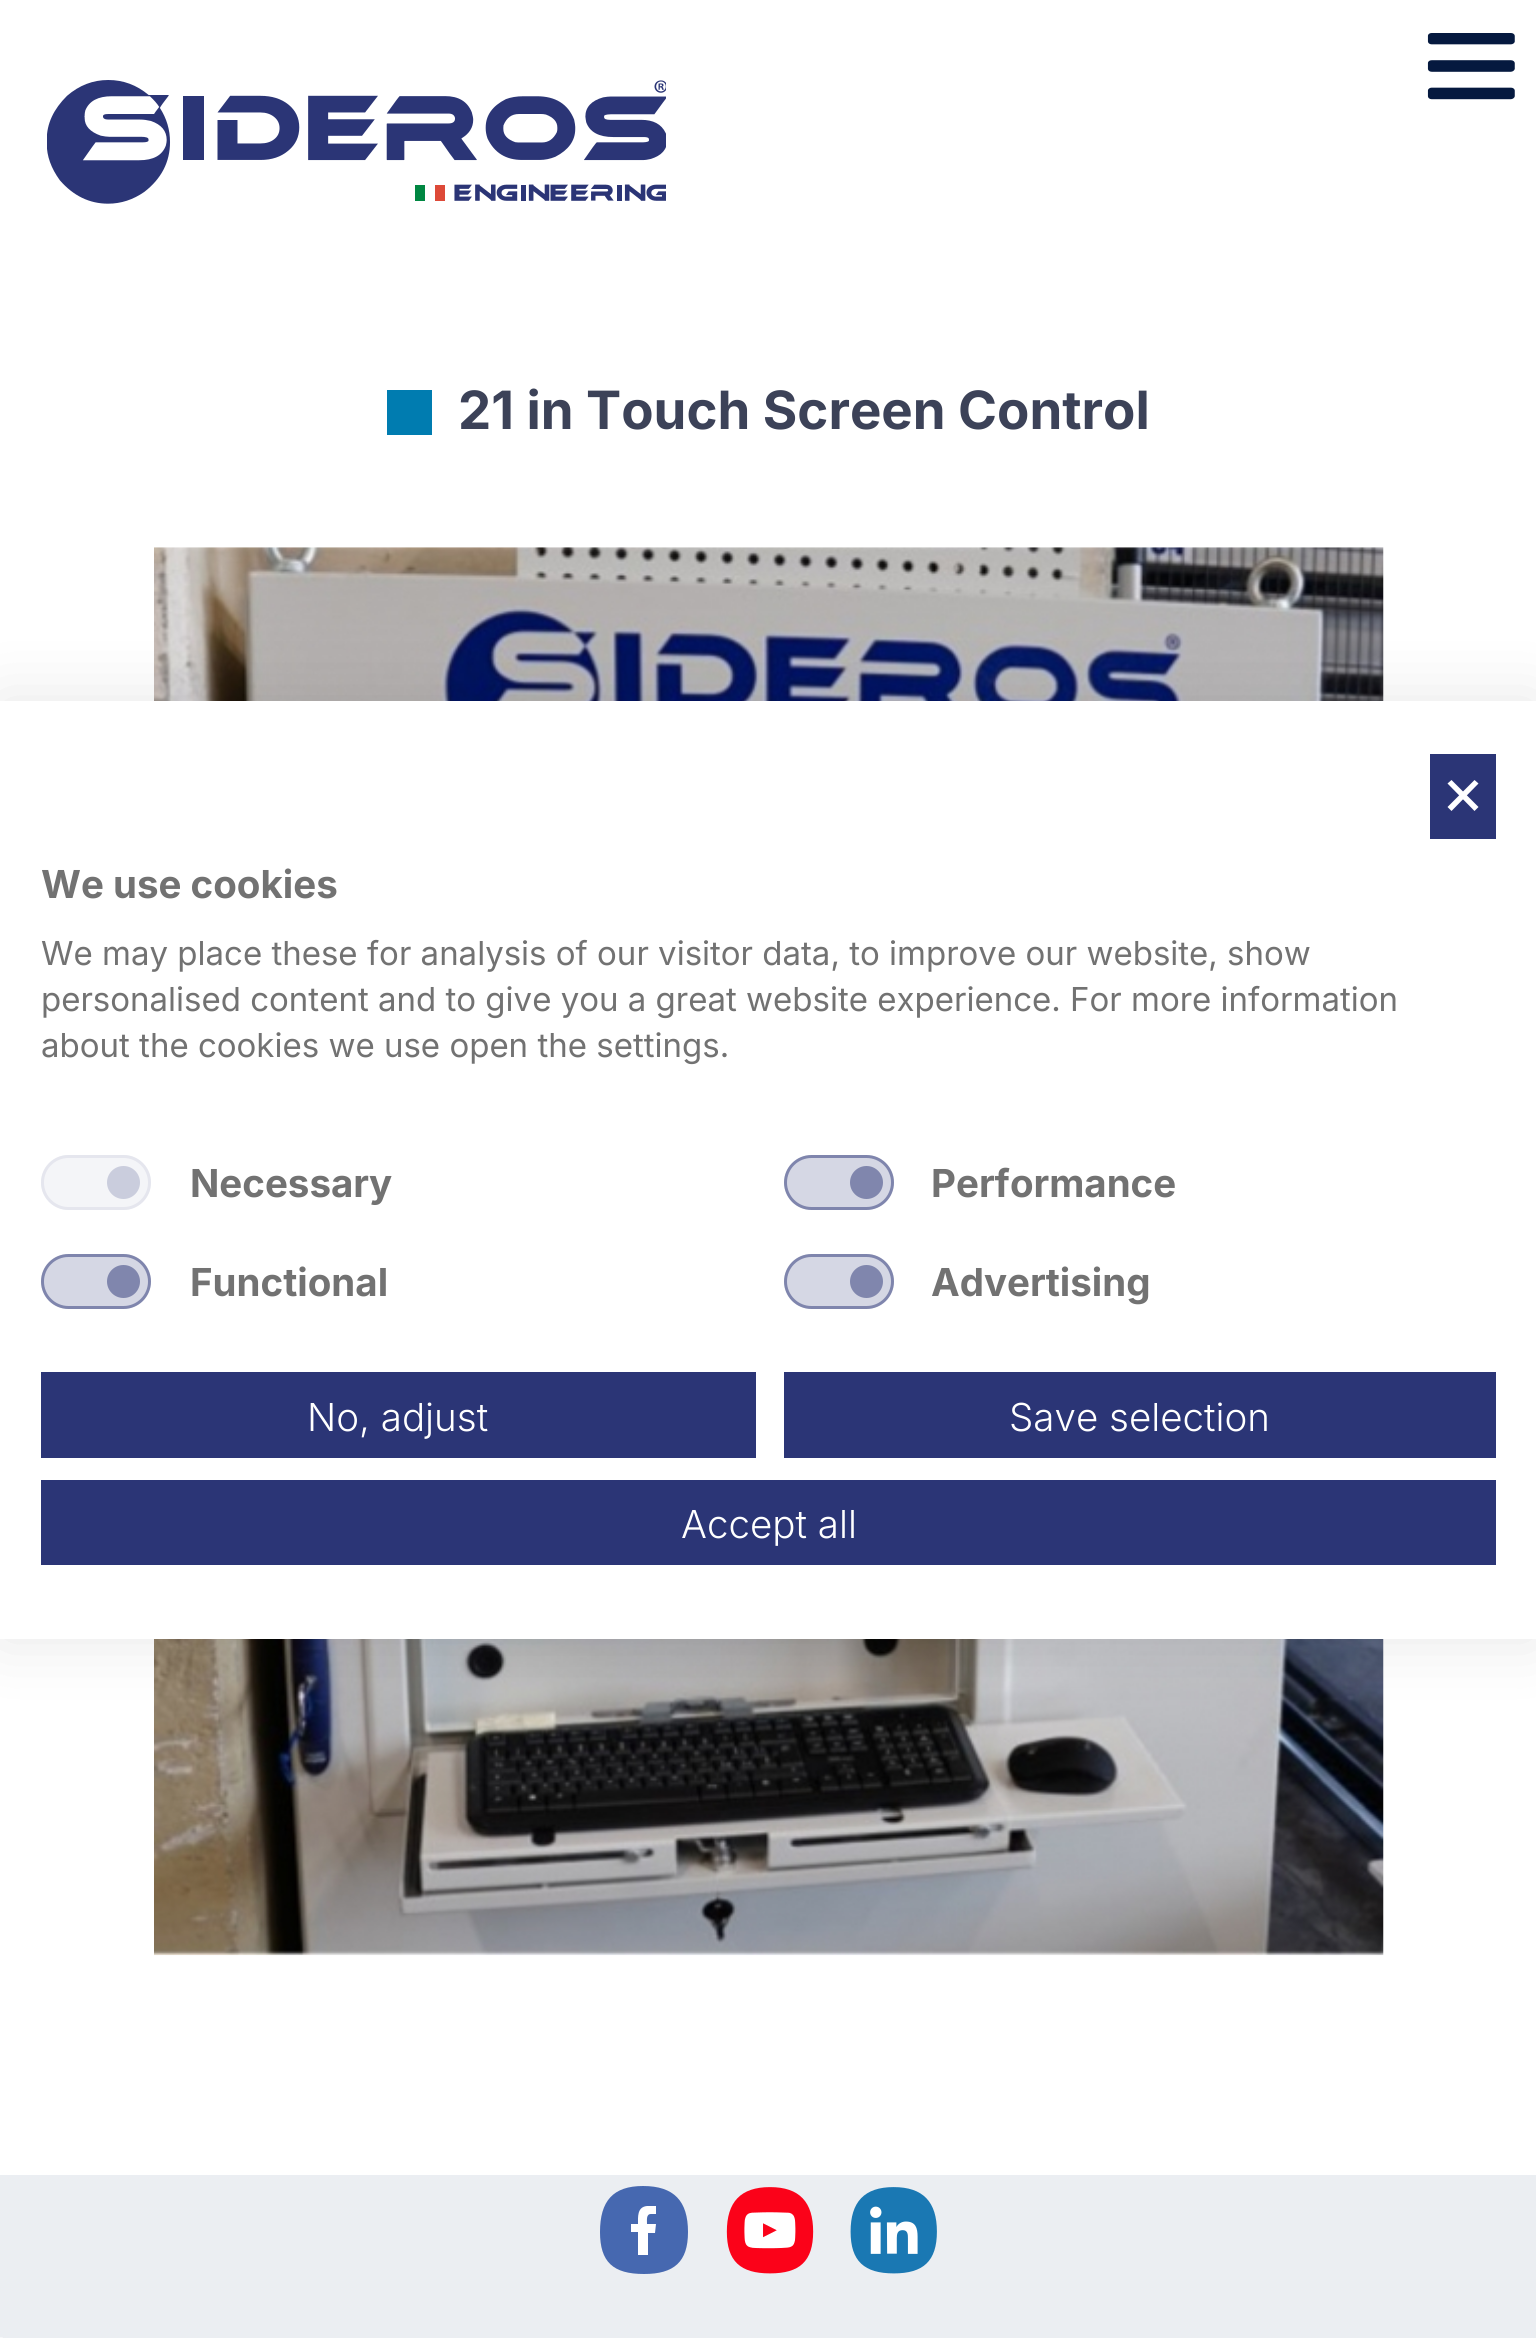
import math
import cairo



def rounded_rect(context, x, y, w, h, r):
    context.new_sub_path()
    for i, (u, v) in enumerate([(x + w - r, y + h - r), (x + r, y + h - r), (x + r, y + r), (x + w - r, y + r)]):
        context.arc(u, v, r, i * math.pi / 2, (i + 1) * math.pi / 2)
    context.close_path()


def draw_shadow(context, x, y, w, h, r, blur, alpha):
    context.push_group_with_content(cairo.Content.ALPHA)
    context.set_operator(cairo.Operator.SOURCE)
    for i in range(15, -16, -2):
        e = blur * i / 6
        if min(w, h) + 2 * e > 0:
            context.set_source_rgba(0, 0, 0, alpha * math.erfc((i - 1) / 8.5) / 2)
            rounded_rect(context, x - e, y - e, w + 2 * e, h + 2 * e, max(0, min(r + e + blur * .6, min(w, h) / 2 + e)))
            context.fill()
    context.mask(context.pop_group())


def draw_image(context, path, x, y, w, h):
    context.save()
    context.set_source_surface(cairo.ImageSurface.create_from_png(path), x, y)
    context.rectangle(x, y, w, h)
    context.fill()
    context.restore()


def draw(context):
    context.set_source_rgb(1, 1, 1)
    context.paint()
    draw_image(context, "images/1.png", 1427, 33, 88, 67)
    draw_image(context, "images/2.png", 47, 80, 619, 124)
    context.set_source_rgb(0, 124 / 255, 176 / 255)
    context.rectangle(387, 390, 45, 45)
    context.fill()
    draw_image(context, "images/3.png", 154, 547, 1230, 1409)
    context.set_source_rgb(235 / 255, 238 / 255, 242 / 255)
    context.rectangle(0, 2175, 1536, 163)
    context.fill()
    context.set_source_rgb(70 / 255, 104 / 255, 176 / 255)
    context.new_path()
    context.move_to(688, 2232)
    context.curve_to(688, 2262, 674, 2274, 644, 2274)
    context.curve_to(613, 2274, 600, 2262, 600, 2232)
    context.curve_to(600, 2201, 613, 2186, 643, 2186)
    context.curve_to(674, 2186, 688, 2201, 688, 2232)
    context.fill()
    context.set_source_rgb(1, 1, 1)
    context.new_path()
    context.move_to(651, 2214)
    context.line_to(656, 2214)
    context.line_to(656, 2206)
    context.line_to(647, 2206)
    context.curve_to(637, 2207, 638, 2217, 638, 2224)
    context.line_to(631, 2224)
    context.line_to(631, 2232)
    context.line_to(638, 2232)
    context.line_to(638, 2255)
    context.line_to(648, 2255)
    context.line_to(648, 2233)
    context.line_to(655, 2233)
    context.line_to(656, 2224)
    context.line_to(647, 2224)
    context.curve_to(647, 2220, 646, 2214, 651, 2214)
    context.fill()
    draw_image(context, "images/4.png", 726, 2187, 88, 87)
    draw_image(context, "images/5.png", 850, 2187, 87, 87)
    context.set_source_rgb(0, 0, 0)
    draw_shadow(context, 0, 701, 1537, 938, 0, 33, 0.1)
    context.set_source_rgb(1, 1, 1)
    context.rectangle(0, 701, 1536, 938)
    context.fill()
    context.set_source_rgb(43 / 255, 53 / 255, 118 / 255)
    context.rectangle(1430, 754, 66, 85)
    context.fill()
    context.set_source_rgb(1, 1, 1)
    context.new_path()
    context.move_to(1474.5, 780)
    context.line_to(1478.5, 783.5)
    context.line_to(1451.5, 811)
    context.line_to(1447.5, 807)
    context.close_path()
    context.fill()
    context.new_path()
    context.move_to(1447.5, 783.5)
    context.line_to(1451.5, 780)
    context.line_to(1478.5, 807)
    context.line_to(1474.5, 811)
    context.close_path()
    context.fill()
    context.set_source_rgb(244 / 255, 245 / 255, 248 / 255)
    rounded_rect(context, 41, 1155, 110, 55, 27.5)
    context.fill()
    context.set_source_rgb(202 / 255, 205 / 255, 221 / 255)
    context.arc(123.5, 1182.5, 16.5, 0, 2 * math.pi)
    context.fill()
    rounded_rect(context, 42.5, 1156.5, 107, 52, 26)
    context.set_source_rgb(229 / 255, 230 / 255, 238 / 255)
    context.set_line_width(3)
    context.stroke()
    context.set_source_rgb(213 / 255, 215 / 255, 228 / 255)
    rounded_rect(context, 784, 1155, 110, 55, 27.5)
    context.fill()
    context.set_source_rgb(128 / 255, 134 / 255, 173 / 255)
    context.arc(866.5, 1182.5, 16.5, 0, 2 * math.pi)
    context.fill()
    rounded_rect(context, 785.5, 1156.5, 107, 52, 26)
    context.set_source_rgba(43 / 255, 53 / 255, 118 / 255, 0.5)
    context.stroke()
    context.set_source_rgb(213 / 255, 215 / 255, 228 / 255)
    rounded_rect(context, 41, 1254, 110, 55, 27.5)
    context.fill()
    context.set_source_rgb(128 / 255, 134 / 255, 173 / 255)
    context.arc(123.5, 1281.5, 16.5, 0, 2 * math.pi)
    context.fill()
    rounded_rect(context, 42.5, 1255.5, 107, 52, 26)
    context.set_source_rgba(43 / 255, 53 / 255, 118 / 255, 0.5)
    context.stroke()
    context.set_source_rgb(213 / 255, 215 / 255, 228 / 255)
    rounded_rect(context, 784, 1254, 110, 55, 27.5)
    context.fill()
    context.set_source_rgb(128 / 255, 134 / 255, 173 / 255)
    context.arc(866.5, 1281.5, 16.5, 0, 2 * math.pi)
    context.fill()
    rounded_rect(context, 785.5, 1255.5, 107, 52, 26)
    context.set_source_rgba(43 / 255, 53 / 255, 118 / 255, 0.5)
    context.stroke()
    context.set_source_rgb(43 / 255, 53 / 255, 118 / 255)
    context.rectangle(41, 1372, 715, 86)
    context.fill()
    context.rectangle(784, 1372, 712, 86)
    context.fill()
    context.rectangle(41, 1480, 1455, 85)
    context.fill()
    draw_image(context, "images/6.png", 0, 2337, 3, 1)
    context.select_font_face("Inter", cairo.FontSlant.NORMAL, cairo.FontWeight.BOLD)
    context.set_font_size(52.75)
    context.set_source_rgb(60 / 255, 66 / 255, 88 / 255)
    context.move_to(458, 429)
    context.show_text("21 in Touch Screen Control")
    context.set_font_size(38.5)
    context.set_source_rgb(114 / 255, 114 / 255, 114 / 255)
    context.move_to(41, 898)
    context.show_text("We use cookies")
    context.select_font_face("Inter")
    context.set_font_size(33)
    context.move_to(41, 965)
    context.show_text("We may place these for analysis of our visitor data, to improve our website, show")
    context.move_to(41, 1011)
    context.show_text("personalised content and to give you a great website experience. For more information")
    context.move_to(41, 1057)
    context.show_text("about the cookies we use open the settings.")
    context.select_font_face("Inter", cairo.FontSlant.NORMAL, cairo.FontWeight.BOLD)
    context.set_font_size(38.5)
    context.move_to(190, 1197)
    context.show_text("Necessary")
    context.move_to(931, 1197)
    context.show_text("Performance")
    context.move_to(190, 1296)
    context.show_text("Functional")
    context.move_to(931, 1296)
    context.show_text("Advertising")
    context.select_font_face("Inter Light")
    context.set_source_rgb(1, 1, 1)
    context.move_to(307, 1431)
    context.show_text("No, adjust")
    context.move_to(1009, 1431)
    context.show_text("Save selection")
    context.move_to(681, 1538)
    context.show_text("Accept all")


surface = cairo.ImageSurface(cairo.Format.RGB24, 1536, 2338)
context = cairo.Context(surface)
options = cairo.FontOptions()
options.set_hint_metrics(cairo.HintMetrics.OFF)
options.set_hint_style(cairo.HintStyle.NONE)
context.set_font_options(options)
context.set_miter_limit(4)
draw(context)
surface.write_to_png("out.png")
